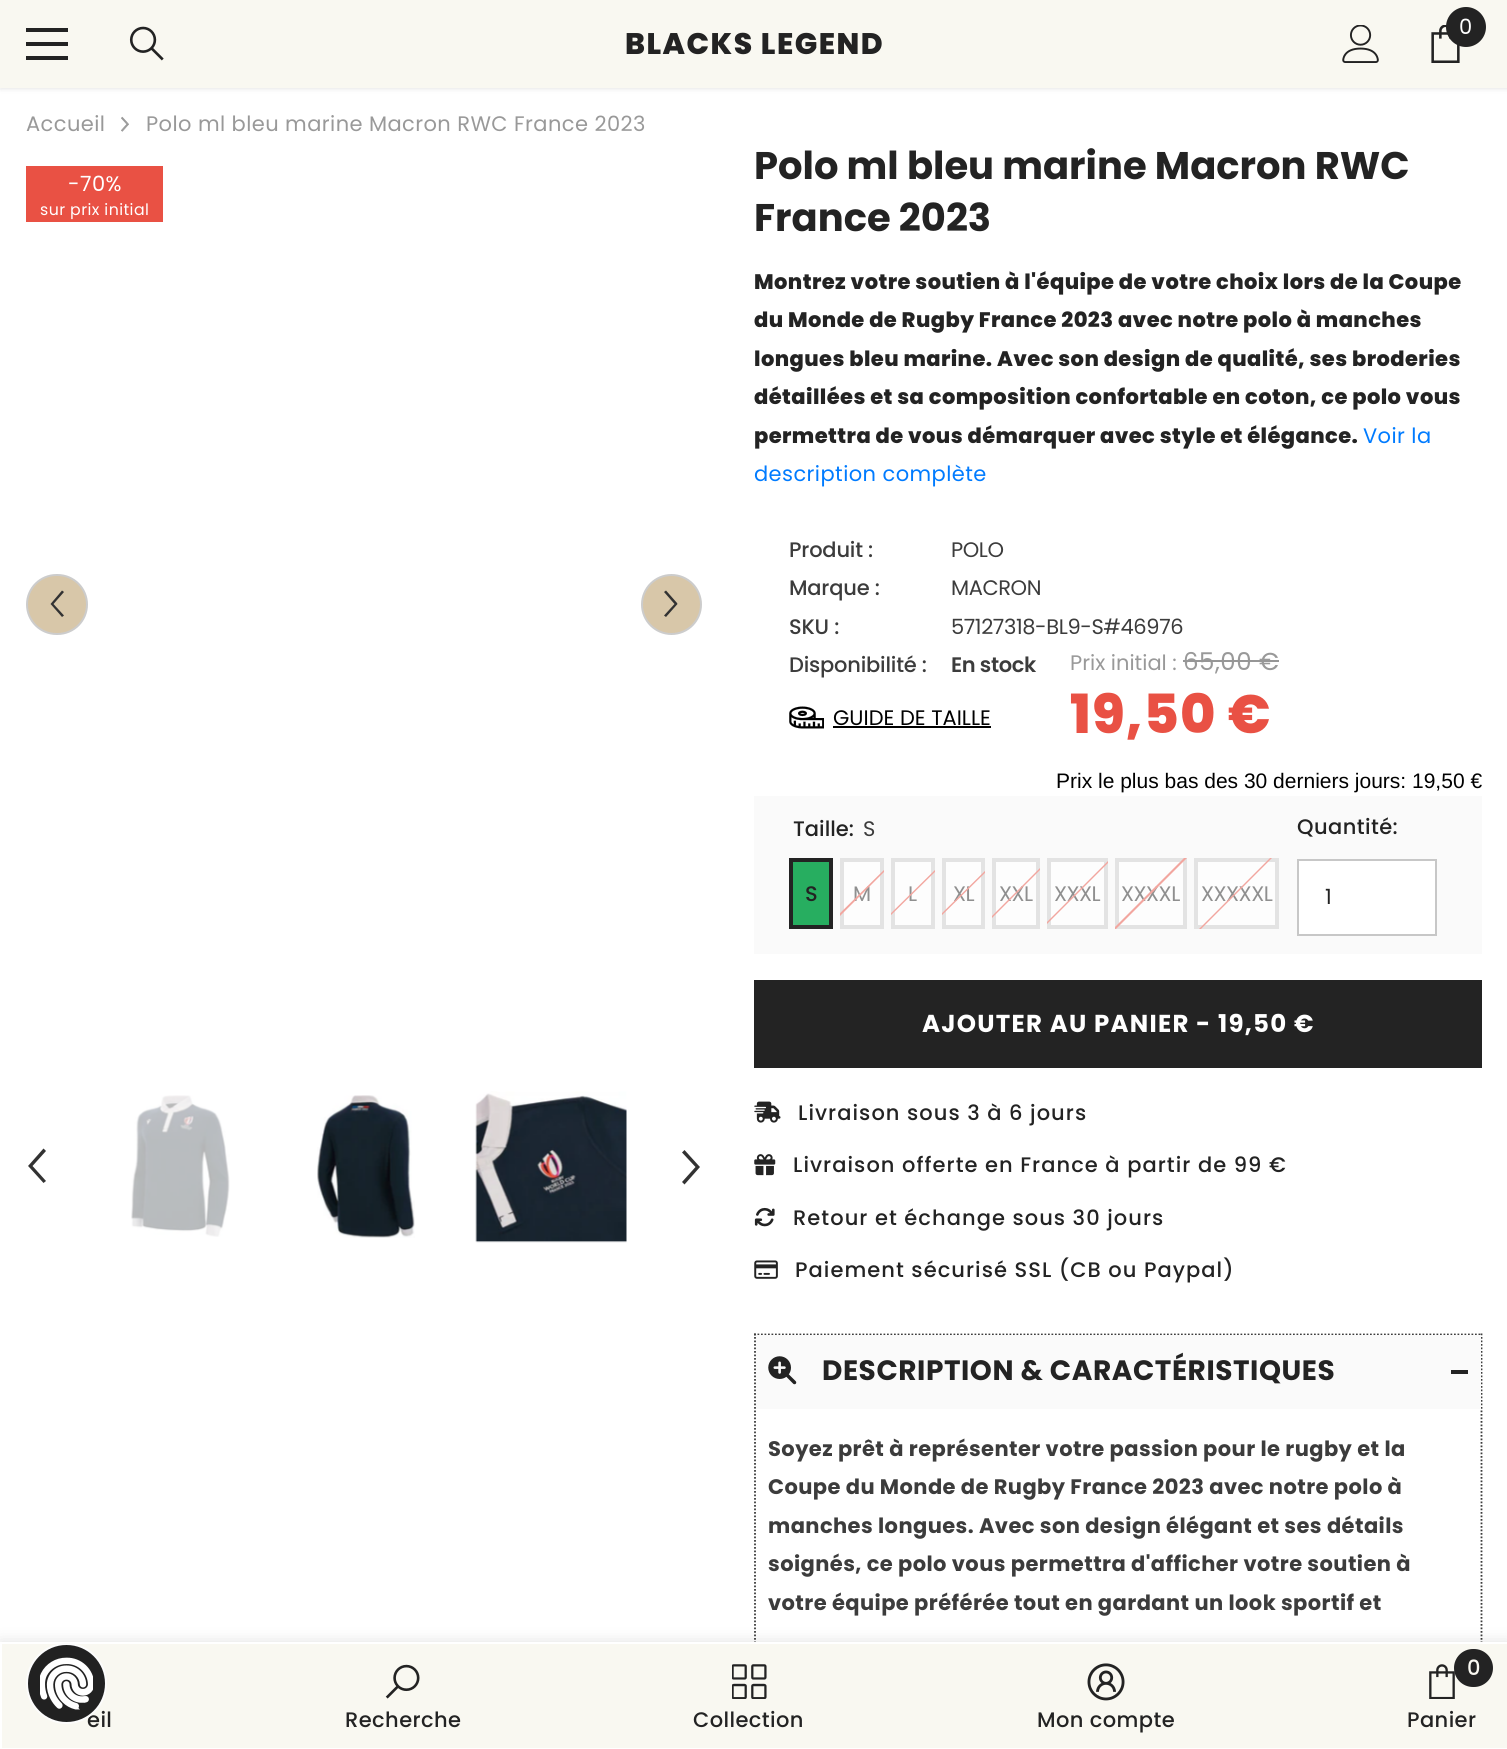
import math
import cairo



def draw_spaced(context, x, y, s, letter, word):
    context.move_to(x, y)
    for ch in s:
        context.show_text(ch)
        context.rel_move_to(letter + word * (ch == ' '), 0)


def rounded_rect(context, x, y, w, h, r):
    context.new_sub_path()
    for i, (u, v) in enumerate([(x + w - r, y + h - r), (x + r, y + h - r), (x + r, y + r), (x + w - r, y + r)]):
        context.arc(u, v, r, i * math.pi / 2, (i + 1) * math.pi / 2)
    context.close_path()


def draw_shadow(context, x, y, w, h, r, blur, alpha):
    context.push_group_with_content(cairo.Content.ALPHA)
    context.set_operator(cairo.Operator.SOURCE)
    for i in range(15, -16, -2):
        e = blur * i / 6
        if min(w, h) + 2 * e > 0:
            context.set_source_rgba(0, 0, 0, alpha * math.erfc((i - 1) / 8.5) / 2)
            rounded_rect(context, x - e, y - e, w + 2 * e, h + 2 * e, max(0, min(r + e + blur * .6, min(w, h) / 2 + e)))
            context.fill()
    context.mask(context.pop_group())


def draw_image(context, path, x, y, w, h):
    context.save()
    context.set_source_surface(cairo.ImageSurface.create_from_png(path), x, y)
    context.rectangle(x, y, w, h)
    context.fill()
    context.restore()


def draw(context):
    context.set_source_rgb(1, 1, 1)
    context.paint()
    context.set_source_rgb(0, 0, 0)
    draw_shadow(context, 0, 2, 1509, 87, 0, 2.5, 0.1)
    context.set_source_rgb(249 / 255, 248 / 255, 241 / 255)
    context.rectangle(0, 0, 1507, 88)
    context.fill()
    context.set_source_rgb(35 / 255, 35 / 255, 35 / 255)
    context.rectangle(26, 42, 42, 4)
    context.fill()
    context.rectangle(26, 28, 42, 4)
    context.fill()
    context.rectangle(26, 56, 42, 4)
    context.fill()
    draw_image(context, "images/1.png", 129, 26, 35, 35)
    draw_image(context, "images/2.png", 1342, 25, 37, 38)
    draw_image(context, "images/3.png", 1431, 25, 29, 38)
    context.arc(1466, 27, 20, 0, 2 * math.pi)
    context.fill()
    draw_image(context, "images/4.png", 121, 116, 8, 16)
    context.set_source_rgb(233 / 255, 81 / 255, 68 / 255)
    context.rectangle(26, 166, 137, 56)
    context.fill()
    context.set_source_rgb(216 / 255, 199 / 255, 169 / 255)
    rounded_rect(context, 27, 575, 60, 59, 29.5)
    context.fill_preserve()
    context.set_source_rgb(204 / 255, 204 / 255, 204 / 255)
    context.stroke()
    context.set_source_rgb(50 / 255, 50 / 255, 50 / 255)
    context.new_path()
    context.move_to(62, 617)
    context.line_to(64, 615.5)
    context.line_to(53.5, 604)
    context.line_to(64, 592)
    context.line_to(62, 590.5)
    context.line_to(50.5, 604)
    context.line_to(51, 604.5)
    context.close_path()
    context.fill()
    context.set_source_rgb(216 / 255, 199 / 255, 169 / 255)
    context.arc(671.5, 604.5, 29.5, 0, 2 * math.pi)
    context.fill_preserve()
    context.set_source_rgb(204 / 255, 204 / 255, 204 / 255)
    context.stroke()
    context.set_source_rgb(50 / 255, 50 / 255, 50 / 255)
    context.new_path()
    context.move_to(666, 590.5)
    context.line_to(664, 592)
    context.line_to(674.5, 604)
    context.line_to(664, 615.5)
    context.line_to(666, 617)
    context.line_to(677.5, 604)
    context.line_to(677, 603)
    context.close_path()
    context.fill()
    context.new_path()
    context.move_to(43.5, 1183)
    context.line_to(46, 1181)
    context.line_to(32.5, 1166)
    context.line_to(46, 1151)
    context.line_to(43.5, 1148.5)
    context.line_to(28, 1166)
    context.line_to(29, 1167)
    context.close_path()
    context.fill()
    draw_image(context, "images/5.png", 131, 1095, 99, 142)
    draw_image(context, "images/6.png", 317, 1095, 98, 143)
    draw_image(context, "images/7.png", 475, 1091, 152, 152)
    context.new_path()
    context.move_to(684.5, 1150)
    context.line_to(682, 1152.5)
    context.line_to(695.5, 1167)
    context.line_to(682, 1182)
    context.line_to(684.5, 1184.5)
    context.line_to(700, 1167)
    context.line_to(699, 1166)
    context.close_path()
    context.fill()
    draw_image(context, "images/8.png", 789, 706, 35, 23)
    context.set_source_rgb(0, 0, 0)
    context.rectangle(833, 726, 158, 2)
    context.fill()
    context.set_source_rgb(250 / 255, 250 / 255, 250 / 255)
    context.rectangle(754, 796, 728, 158)
    context.fill()
    context.set_source_rgb(39 / 255, 174 / 255, 96 / 255)
    context.rectangle(791, 860, 40, 67)
    context.fill_preserve()
    context.set_source_rgb(35 / 255, 35 / 255, 35 / 255)
    context.set_line_width(4)
    context.stroke()
    context.set_source_rgb(253 / 255, 253 / 255, 253 / 255)
    context.rectangle(842, 860, 40, 67)
    context.fill_preserve()
    context.set_source_rgb(227 / 255, 227 / 255, 227 / 255)
    context.stroke()
    context.set_source_rgb(253 / 255, 253 / 255, 253 / 255)
    context.rectangle(893, 860, 40, 67)
    context.fill_preserve()
    context.set_source_rgb(227 / 255, 227 / 255, 227 / 255)
    context.stroke()
    context.set_source_rgb(253 / 255, 253 / 255, 253 / 255)
    context.rectangle(944, 860, 39, 67)
    context.fill_preserve()
    context.set_source_rgb(227 / 255, 227 / 255, 227 / 255)
    context.stroke()
    context.set_source_rgb(253 / 255, 253 / 255, 253 / 255)
    context.rectangle(994, 860, 44, 67)
    context.fill_preserve()
    context.set_source_rgb(227 / 255, 227 / 255, 227 / 255)
    context.stroke()
    context.set_source_rgb(253 / 255, 253 / 255, 253 / 255)
    context.rectangle(1049, 860, 57, 67)
    context.fill_preserve()
    context.set_source_rgb(227 / 255, 227 / 255, 227 / 255)
    context.stroke()
    context.set_source_rgb(253 / 255, 253 / 255, 253 / 255)
    context.rectangle(1117, 860, 68, 67)
    context.fill_preserve()
    context.set_source_rgb(227 / 255, 227 / 255, 227 / 255)
    context.stroke()
    context.set_source_rgb(253 / 255, 253 / 255, 253 / 255)
    context.rectangle(1196, 860, 81, 67)
    context.fill_preserve()
    context.set_source_rgb(227 / 255, 227 / 255, 227 / 255)
    context.stroke()
    context.set_source_rgb(1, 1, 1)
    context.rectangle(1298, 860, 138, 75)
    context.fill_preserve()
    context.set_source_rgb(199 / 255, 199 / 255, 199 / 255)
    context.set_line_width(2)
    context.stroke()
    context.set_source_rgb(35 / 255, 35 / 255, 35 / 255)
    context.rectangle(754, 980, 728, 88)
    context.fill()
    draw_image(context, "images/9.png", 754, 1101, 27, 22)
    draw_image(context, "images/10.png", 754, 1154, 22, 22)
    draw_image(context, "images/11.png", 754, 1207, 21, 20)
    draw_image(context, "images/12.png", 754, 1260, 24, 19)
    context.new_path()
    context.move_to(754, 1334.5)
    context.line_to(1482, 1334.5)
    context.set_source_rgb(60 / 255, 60 / 255, 60 / 255)
    context.set_line_width(1.8)
    context.set_dash([1.75, 1.75])
    context.stroke()
    context.new_path()
    context.move_to(1481.5, 1333.5)
    context.line_to(1481.5, 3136)
    context.stroke()
    context.new_path()
    context.move_to(755, 1333.5)
    context.line_to(755, 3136)
    context.stroke()
    context.set_source_rgb(250 / 255, 250 / 255, 250 / 255)
    context.rectangle(756, 1335, 725, 74)
    context.fill()
    draw_image(context, "images/13.png", 768, 1356, 29, 29)
    context.set_source_rgb(35 / 255, 35 / 255, 35 / 255)
    context.rectangle(1451, 1370, 17, 4)
    context.fill()
    context.set_source_rgb(0, 0, 0)
    draw_shadow(context, 0, 1642, 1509, 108, 0, 8, 0.12)
    context.set_source_rgb(249 / 255, 248 / 255, 241 / 255)
    context.rectangle(1, 1643, 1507, 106)
    context.fill_preserve()
    context.set_source_rgb(1, 1, 1)
    context.set_line_width(2)
    context.set_dash([])
    context.stroke()
    draw_image(context, "images/14.png", 385, 1664, 35, 35)
    draw_image(context, "images/15.png", 732, 1664, 35, 35)
    draw_image(context, "images/16.png", 1087, 1663, 38, 38)
    draw_image(context, "images/17.png", 1429, 1664, 26, 35)
    context.set_source_rgb(35 / 255, 35 / 255, 35 / 255)
    rounded_rect(context, 1454, 1649, 39, 38, 19)
    context.fill()
    context.select_font_face("Poppins ExtraBold")
    context.set_font_size(29.75)
    draw_spaced(context, 625, 54, "BLACKS LEGEND", 1.5, 0)
    context.select_font_face("Poppins")
    context.set_font_size(21)
    context.set_source_rgb(1, 1, 1)
    context.move_to(1459, 34)
    context.show_text("0")
    context.set_source_rgb(153 / 255, 153 / 255, 153 / 255)
    draw_spaced(context, 26, 131, "Accueil", 0.42, 0)
    draw_spaced(context, 146, 131, "Polo ml bleu marine Macron RWC France 2023", 0.42, 0)
    context.set_source_rgb(1, 1, 1)
    draw_spaced(context, 68, 191, "-70%", 0.42, 0)
    context.set_font_size(15.75)
    draw_spaced(context, 40, 215, "sur prix initial", 0.42, 0)
    context.select_font_face("Poppins", cairo.FontSlant.NORMAL, cairo.FontWeight.BOLD)
    context.set_font_size(38.5)
    context.set_source_rgb(35 / 255, 35 / 255, 35 / 255)
    context.move_to(754, 179)
    context.show_text("Polo ml bleu marine Macron RWC")
    context.move_to(754, 231)
    context.show_text("France 2023")
    context.select_font_face("Poppins ExtraBold")
    context.set_font_size(21)
    draw_spaced(context, 754, 289, "Montrez votre soutien à l'équipe de votre choix lors de la Coupe", 0.42, 0)
    draw_spaced(context, 754, 327, "du Monde de Rugby France 2023 avec notre polo à manches", 0.42, 0)
    draw_spaced(context, 754, 366, "longues bleu marine. Avec son design de qualité, ses broderies", 0.42, 0)
    draw_spaced(context, 754, 404, "détaillées et sa composition confortable en coton, ce polo vous", 0.42, 0)
    draw_spaced(context, 754, 443, "permettra de vous démarquer avec style et élégance.", 0.42, 0)
    context.select_font_face("Poppins")
    context.set_source_rgb(0, 123 / 255, 1)
    draw_spaced(context, 1363, 443, "Voir la", 0.42, 0)
    draw_spaced(context, 754, 481, "description complète", 0.42, 0)
    context.select_font_face("Poppins Medium")
    context.set_source_rgb(60 / 255, 60 / 255, 60 / 255)
    draw_spaced(context, 789, 557, "Produit :", -0.2, 0)
    context.select_font_face("Poppins")
    draw_spaced(context, 951, 557, "POLO", -0.4, 0)
    context.select_font_face("Poppins Medium")
    draw_spaced(context, 789, 595, "Marque :", -0.2, 0)
    context.select_font_face("Poppins")
    draw_spaced(context, 951, 595, "MACRON", -0.4, 0)
    context.select_font_face("Poppins Medium")
    draw_spaced(context, 789, 634, "SKU :", -0.2, 0)
    context.select_font_face("Poppins")
    draw_spaced(context, 951, 634, "57127318-BL9-S#46976", -0.4, 0)
    context.select_font_face("Poppins Medium")
    draw_spaced(context, 789, 672, "Disponibilité :", -0.2, 0)
    context.select_font_face("Poppins SemiBold")
    draw_spaced(context, 951, 672, "En stock", -0.4, 0)
    context.select_font_face("Poppins")
    context.set_source_rgb(0, 0, 0)
    context.move_to(833, 725)
    context.show_text("GUIDE DE TAILLE")
    context.set_source_rgb(153 / 255, 153 / 255, 153 / 255)
    context.move_to(1070, 670)
    context.show_text("Prix initial :")
    context.set_font_size(24.5)
    draw_spaced(context, 1183, 670, "65,00 €", 0.5, 0)
    context.set_source_rgb(150 / 255, 150 / 255, 150 / 255)
    context.rectangle(1183, 660, 96, 2)
    context.fill()
    context.select_font_face("Poppins ExtraBold")
    context.set_font_size(54)
    context.set_source_rgb(233 / 255, 81 / 255, 68 / 255)
    draw_spaced(context, 1070, 733, "19,50 €", 1, 0)
    context.select_font_face("Liberation Sans")
    context.set_font_size(21)
    context.set_source_rgb(0, 0, 0)
    context.move_to(1056, 788)
    context.show_text("Prix le plus bas des 30 derniers jours: 19,50 €")
    context.select_font_face("Poppins Medium")
    context.set_source_rgb(35 / 255, 35 / 255, 35 / 255)
    context.move_to(793, 836)
    context.show_text("Taille:")
    context.select_font_face("Poppins")
    context.set_source_rgb(60 / 255, 60 / 255, 60 / 255)
    context.move_to(863, 836)
    context.show_text("S")
    context.select_font_face("Poppins Medium")
    context.set_source_rgb(35 / 255, 35 / 255, 35 / 255)
    draw_spaced(context, 805, 901, "S", -0.5, 0)
    context.select_font_face("Poppins")
    context.set_source_rgb(143 / 255, 143 / 255, 143 / 255)
    draw_spaced(context, 853, 901, "M", -0.5, 0)
    context.save()
    context.rectangle(840, 858, 44, 71)
    context.clip()
    context.set_source_rgb(242 / 255, 166 / 255, 159 / 255)
    context.new_path()
    context.move_to(833, 920)
    context.line_to(889, 865)
    context.line_to(890, 866)
    context.line_to(835, 921)
    context.close_path()
    context.fill()
    context.restore()
    draw_spaced(context, 908, 901, "L", -0.5, 0)
    context.save()
    context.rectangle(891, 858, 44, 71)
    context.clip()
    context.set_source_rgb(242 / 255, 166 / 255, 159 / 255)
    context.new_path()
    context.move_to(884, 920)
    context.line_to(940, 865)
    context.line_to(941, 866)
    context.line_to(885, 921)
    context.close_path()
    context.fill()
    context.restore()
    draw_spaced(context, 953, 901, "XL", -0.5, 0)
    context.save()
    context.rectangle(942, 858, 43, 71)
    context.clip()
    context.set_source_rgb(242 / 255, 166 / 255, 159 / 255)
    context.new_path()
    context.move_to(935, 920)
    context.line_to(991, 865)
    context.line_to(992, 866)
    context.line_to(936, 921)
    context.close_path()
    context.fill()
    context.restore()
    draw_spaced(context, 999, 901, "XXL", -0.5, 0)
    context.save()
    context.rectangle(992, 858, 48, 71)
    context.clip()
    context.set_source_rgb(242 / 255, 166 / 255, 159 / 255)
    context.new_path()
    context.move_to(986, 922)
    context.line_to(1045, 863)
    context.line_to(1046, 864)
    context.line_to(987, 923)
    context.close_path()
    context.fill()
    context.restore()
    draw_spaced(context, 1054, 901, "XXXL", -0.5, 0)
    context.save()
    context.rectangle(1047, 858, 61, 71)
    context.clip()
    context.set_source_rgb(242 / 255, 166 / 255, 159 / 255)
    context.new_path()
    context.move_to(1043, 926)
    context.line_to(1110, 859)
    context.line_to(1111, 860)
    context.line_to(1044, 927)
    context.close_path()
    context.fill()
    context.restore()
    draw_spaced(context, 1121, 901, "XXXXL", -0.5, 0)
    context.save()
    context.rectangle(1115, 858, 72, 71)
    context.clip()
    context.set_source_rgb(242 / 255, 166 / 255, 159 / 255)
    context.new_path()
    context.move_to(1112, 930)
    context.line_to(1188, 854)
    context.line_to(1189, 856)
    context.line_to(1113, 932)
    context.close_path()
    context.fill()
    context.restore()
    draw_spaced(context, 1201, 901, "XXXXXL", -0.5, 0)
    context.save()
    context.rectangle(1194, 858, 85, 71)
    context.clip()
    context.set_source_rgb(242 / 255, 166 / 255, 159 / 255)
    context.new_path()
    context.move_to(1193, 935)
    context.line_to(1278, 850)
    context.line_to(1279, 851)
    context.line_to(1194, 936)
    context.close_path()
    context.fill()
    context.restore()
    context.select_font_face("Poppins Medium")
    context.set_source_rgb(35 / 255, 35 / 255, 35 / 255)
    draw_spaced(context, 1297, 834, "Quantité:", 0.42, 0)
    context.select_font_face("Poppins")
    draw_spaced(context, 1325, 904, "1", 0.42, 0)
    context.select_font_face("Poppins", cairo.FontSlant.NORMAL, cairo.FontWeight.BOLD)
    context.set_font_size(24.5)
    context.set_source_rgb(1, 1, 1)
    draw_spaced(context, 922, 1032, "AJOUTER AU PANIER - 19,50 €", 1.25, 0)
    context.select_font_face("Poppins Medium")
    context.set_font_size(21)
    context.set_source_rgb(35 / 255, 35 / 255, 35 / 255)
    draw_spaced(context, 798, 1120, "Livraison sous 3 à 6 jours", 1.05, 0)
    draw_spaced(context, 793, 1172, "Livraison offerte en France à partir de 99 €", 1.05, 0)
    draw_spaced(context, 793, 1225, "Retour et échange sous 30 jours", 1.05, 0)
    draw_spaced(context, 795, 1277, "Paiement sécurisé SSL (CB ou Paypal)", 1.05, 0)
    context.select_font_face("Poppins", cairo.FontSlant.NORMAL, cairo.FontWeight.BOLD)
    context.set_font_size(28)
    draw_spaced(context, 822, 1380, "DESCRIPTION & CARACTÉRISTIQUES", 0.55, 0)
    context.set_font_size(21)
    context.set_source_rgb(60 / 255, 60 / 255, 60 / 255)
    draw_spaced(context, 768, 1456, "Soyez prêt à représenter votre passion pour le rugby et la", 0.42, 0)
    draw_spaced(context, 768, 1494, "Coupe du Monde de Rugby France 2023 avec notre polo à", 0.42, 0)
    draw_spaced(context, 768, 1533, "manches longues. Avec son design élégant et ses détails", 0.42, 0)
    draw_spaced(context, 768, 1571, "soignés, ce polo vous permettra d'afficher votre soutien à", 0.42, 0)
    draw_spaced(context, 768, 1610, "votre équipe préférée tout en gardant un look sportif et", 0.42, 0)
    context.select_font_face("Poppins Medium")
    context.set_source_rgb(35 / 255, 35 / 255, 35 / 255)
    draw_spaced(context, 87, 1727, "eil", 0.42, 0)
    draw_spaced(context, 345, 1727, "Recherche", 0.42, 0)
    draw_spaced(context, 693, 1727, "Collection", 0.42, 0)
    draw_spaced(context, 1037, 1727, "Mon compte", 0.42, 0)
    context.set_source_rgb(249 / 255, 248 / 255, 241 / 255)
    context.move_to(1467, 1675)
    context.show_text("0")
    context.set_source_rgb(35 / 255, 35 / 255, 35 / 255)
    draw_spaced(context, 1407, 1727, "Panier", 0.42, 0)
    context.set_source_rgb(33 / 255, 33 / 255, 33 / 255)
    context.new_path()
    context.arc(66.5, 1683.5, 39.5, 0, 2 * math.pi)
    context.fill_preserve()
    context.set_source_rgb(252 / 255, 252 / 255, 252 / 255)
    context.stroke()
    draw_image(context, "images/18.png", 40, 1657, 53, 53)


surface = cairo.ImageSurface(cairo.Format.RGB24, 1507, 1749)
context = cairo.Context(surface)
options = cairo.FontOptions()
options.set_hint_metrics(cairo.HintMetrics.OFF)
options.set_hint_style(cairo.HintStyle.NONE)
context.set_font_options(options)
context.set_miter_limit(4)
draw(context)
surface.write_to_png("out.png")
